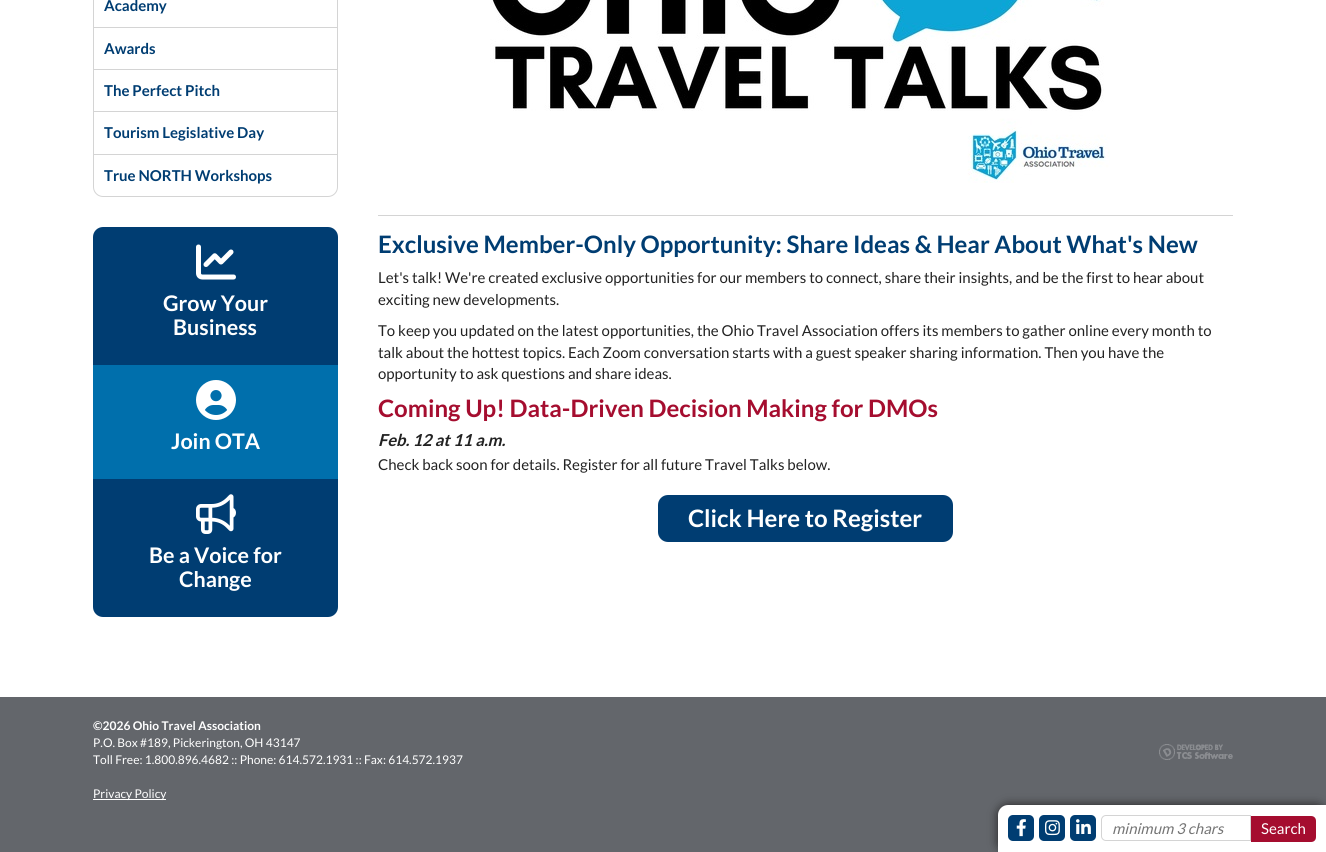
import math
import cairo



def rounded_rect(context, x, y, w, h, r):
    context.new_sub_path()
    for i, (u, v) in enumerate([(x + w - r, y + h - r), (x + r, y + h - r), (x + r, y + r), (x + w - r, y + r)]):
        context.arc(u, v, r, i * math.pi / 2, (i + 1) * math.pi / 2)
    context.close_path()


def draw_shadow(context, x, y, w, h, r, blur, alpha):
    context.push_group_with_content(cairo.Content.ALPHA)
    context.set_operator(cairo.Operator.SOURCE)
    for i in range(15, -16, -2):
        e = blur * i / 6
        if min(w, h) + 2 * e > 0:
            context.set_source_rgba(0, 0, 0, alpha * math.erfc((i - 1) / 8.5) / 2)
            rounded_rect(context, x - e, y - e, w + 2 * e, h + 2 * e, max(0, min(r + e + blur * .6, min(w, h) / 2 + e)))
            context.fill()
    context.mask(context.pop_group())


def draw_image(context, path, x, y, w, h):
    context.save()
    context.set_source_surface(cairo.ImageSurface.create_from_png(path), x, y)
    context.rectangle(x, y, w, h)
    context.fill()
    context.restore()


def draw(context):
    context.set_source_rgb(99 / 255, 102 / 255, 107 / 255)
    context.paint()
    context.set_source_rgb(1, 1, 1)
    context.rectangle(0, 0, 1326, 697)
    context.fill()
    rounded_rect(context, 93.5, -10.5, 244, 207, 9.5)
    context.set_source_rgb(212 / 255, 212 / 255, 212 / 255)
    context.set_line_width(1)
    context.stroke()
    context.rectangle(94, 27, 243, 1)
    context.fill()
    context.rectangle(94, 69, 243, 1)
    context.fill()
    context.rectangle(94, 111, 243, 1)
    context.fill()
    context.rectangle(94, 154, 243, 1)
    context.fill()
    context.set_source_rgb(0, 61 / 255, 114 / 255)
    context.new_path()
    context.move_to(103, 227)
    context.line_to(328, 227)
    context.curve_to(333.5, 227, 338, 231.5, 338, 237)
    context.line_to(338, 365)
    context.line_to(93, 365)
    context.line_to(93, 237)
    context.curve_to(93, 231.5, 97.5, 227, 103, 227)
    context.close_path()
    context.fill()
    draw_image(context, "images/1.png", 196, 244, 40, 36)
    context.set_source_rgb(0, 111 / 255, 172 / 255)
    context.rectangle(93, 365, 245, 114)
    context.fill()
    draw_image(context, "images/2.png", 196, 380, 40, 40)
    context.set_source_rgb(0, 61 / 255, 114 / 255)
    context.new_path()
    context.move_to(93, 479)
    context.line_to(338, 479)
    context.line_to(338, 607)
    context.curve_to(338, 612.5, 333.5, 617, 328, 617)
    context.line_to(103, 617)
    context.curve_to(97.5, 617, 93, 612.5, 93, 607)
    context.close_path()
    context.fill()
    draw_image(context, "images/3.png", 196, 494, 40, 40)
    draw_image(context, "images/4.png", 490, 0, 620, 183)
    context.set_source_rgb(212 / 255, 212 / 255, 212 / 255)
    context.rectangle(378, 215, 855, 1)
    context.fill()
    context.set_source_rgb(0, 61 / 255, 114 / 255)
    rounded_rect(context, 658, 495, 295, 47, 10)
    context.fill()
    context.set_source_rgb(1, 1, 1)
    context.rectangle(93, 799, 73, 1)
    context.fill()
    draw_image(context, "images/5.png", 1159, 744, 74, 16)
    context.set_source_rgb(34 / 255, 34 / 255, 34 / 255)
    draw_shadow(context, 998, 805, 328, 47, 10, 5, 1)
    context.set_source_rgb(1, 1, 1)
    context.new_path()
    context.move_to(1008, 805)
    context.line_to(1326, 805)
    context.line_to(1326, 852)
    context.line_to(998, 852)
    context.line_to(998, 815)
    context.curve_to(998, 809.5, 1002.5, 805, 1008, 805)
    context.close_path()
    context.fill()
    context.set_source_rgb(0, 61 / 255, 114 / 255)
    rounded_rect(context, 1008, 815, 26, 26, 5)
    context.fill()
    draw_image(context, "images/6.png", 1016, 819, 10, 18)
    rounded_rect(context, 1039, 815, 26, 26, 5)
    context.fill()
    draw_image(context, "images/7.png", 1045, 820, 15, 16)
    rounded_rect(context, 1070, 815, 26, 26, 5)
    context.fill()
    draw_image(context, "images/8.png", 1076, 819, 15, 15)
    context.new_path()
    context.move_to(1106, 815.5)
    context.line_to(1250.5, 815.5)
    context.line_to(1250.5, 840.5)
    context.line_to(1106, 840.5)
    context.curve_to(1103.5, 840.5, 1101.5, 838.5, 1101.5, 836)
    context.line_to(1101.5, 820)
    context.curve_to(1101.5, 817.5, 1103.5, 815.5, 1106, 815.5)
    context.close_path()
    context.set_source_rgb(212 / 255, 212 / 255, 212 / 255)
    context.stroke()
    context.set_source_rgb(165 / 255, 13 / 255, 47 / 255)
    context.new_path()
    context.move_to(1251, 816)
    context.line_to(1311, 816)
    context.curve_to(1314, 816, 1316, 818, 1316, 821)
    context.line_to(1316, 837)
    context.curve_to(1316, 840, 1314, 842, 1311, 842)
    context.line_to(1251, 842)
    context.close_path()
    context.fill()
    context.select_font_face("Lato", cairo.FontSlant.NORMAL, cairo.FontWeight.BOLD)
    context.set_font_size(15)
    context.set_source_rgb(0, 61 / 255, 114 / 255)
    context.move_to(104, 11)
    context.show_text("Academy")
    context.move_to(104, 54)
    context.show_text("Awards")
    context.move_to(104, 96)
    context.show_text("The Perfect Pitch")
    context.move_to(104, 138)
    context.show_text("Tourism Legislative Day")
    context.move_to(104, 181)
    context.show_text("True NORTH Workshops")
    context.set_font_size(21.5)
    context.set_source_rgb(1, 1, 1)
    context.move_to(163, 311)
    context.show_text("Grow Your")
    context.move_to(173, 335)
    context.show_text("Business")
    context.move_to(171, 449)
    context.show_text("Join OTA")
    context.move_to(149, 563)
    context.show_text("Be a Voice for")
    context.move_to(179, 587)
    context.show_text("Change")
    context.set_font_size(24)
    context.set_source_rgb(0, 61 / 255, 114 / 255)
    context.move_to(378, 253)
    context.show_text("Exclusive Member-Only Opportunity: Share Ideas & Hear About What's New")
    context.select_font_face("Lato")
    context.set_font_size(15)
    context.set_source_rgb(34 / 255, 34 / 255, 34 / 255)
    context.move_to(378, 283)
    context.show_text("Let's talk! We're created exclusive opportunities for our members to connect, share their insights, and be the first to hear about")
    context.move_to(378, 305)
    context.show_text("exciting new developments.")
    context.move_to(378, 336)
    context.show_text("To keep you updated on the latest opportunities, the Ohio Travel Association offers its members to gather online every month to")
    context.move_to(378, 358)
    context.show_text("talk about the hottest topics. Each Zoom conversation starts with a guest speaker sharing information. Then you have the")
    context.move_to(378, 379)
    context.show_text("opportunity to ask questions and share ideas.")
    context.select_font_face("Lato", cairo.FontSlant.NORMAL, cairo.FontWeight.BOLD)
    context.set_font_size(24)
    context.set_source_rgb(165 / 255, 13 / 255, 47 / 255)
    context.move_to(378, 417)
    context.show_text("Coming Up! Data-Driven Decision Making for DMOs")
    context.select_font_face("Lato", cairo.FontSlant.ITALIC, cairo.FontWeight.BOLD)
    context.set_font_size(16.5)
    context.set_source_rgb(34 / 255, 34 / 255, 34 / 255)
    context.move_to(378, 446)
    context.show_text("Feb. 12 at 11 a.m.")
    context.select_font_face("Lato")
    context.set_font_size(15)
    context.move_to(378, 470)
    context.show_text("Check back soon for details. Register for all future Travel Talks below.")
    context.select_font_face("Lato", cairo.FontSlant.NORMAL, cairo.FontWeight.BOLD)
    context.set_font_size(24)
    context.set_source_rgb(1, 1, 1)
    context.move_to(688, 527)
    context.show_text("Click Here to Register")
    context.set_font_size(12)
    context.move_to(93, 730)
    context.show_text("©2026 Ohio Travel Association")
    context.select_font_face("Lato")
    context.move_to(93, 747)
    context.show_text("P.O. Box #189, Pickerington, OH 43147")
    context.move_to(93, 764)
    context.show_text("Toll Free: 1.800.896.4682 :: Phone: 614.572.1931 :: Fax: 614.572.1937")
    context.move_to(93, 798)
    context.show_text("Privacy Policy")
    context.select_font_face("Lato", cairo.FontSlant.ITALIC)
    context.set_font_size(15)
    context.set_source_rgb(117 / 255, 117 / 255, 117 / 255)
    context.move_to(1112, 834)
    context.show_text("minimum 3 chars")
    context.select_font_face("Lato")
    context.set_source_rgb(1, 1, 1)
    context.move_to(1261, 834)
    context.show_text("Search")


surface = cairo.ImageSurface(cairo.Format.RGB24, 1326, 852)
context = cairo.Context(surface)
options = cairo.FontOptions()
options.set_hint_metrics(cairo.HintMetrics.OFF)
options.set_hint_style(cairo.HintStyle.NONE)
context.set_font_options(options)
context.set_miter_limit(4)
draw(context)
surface.write_to_png("out.png")
